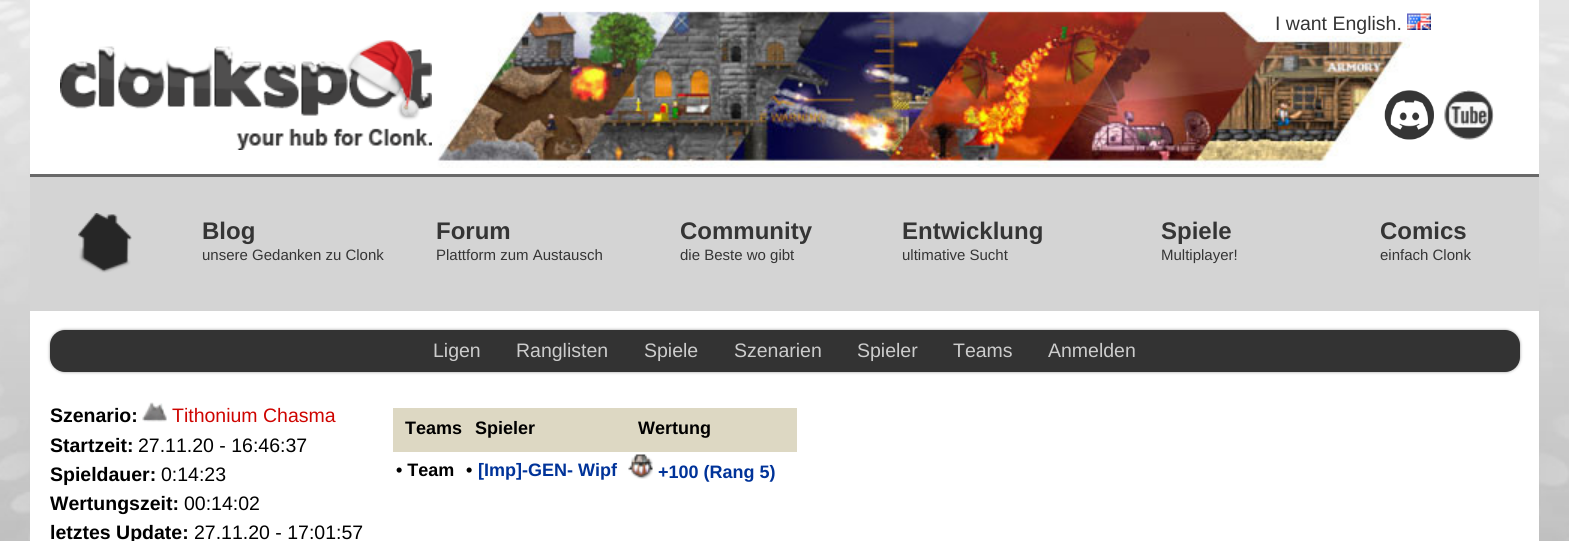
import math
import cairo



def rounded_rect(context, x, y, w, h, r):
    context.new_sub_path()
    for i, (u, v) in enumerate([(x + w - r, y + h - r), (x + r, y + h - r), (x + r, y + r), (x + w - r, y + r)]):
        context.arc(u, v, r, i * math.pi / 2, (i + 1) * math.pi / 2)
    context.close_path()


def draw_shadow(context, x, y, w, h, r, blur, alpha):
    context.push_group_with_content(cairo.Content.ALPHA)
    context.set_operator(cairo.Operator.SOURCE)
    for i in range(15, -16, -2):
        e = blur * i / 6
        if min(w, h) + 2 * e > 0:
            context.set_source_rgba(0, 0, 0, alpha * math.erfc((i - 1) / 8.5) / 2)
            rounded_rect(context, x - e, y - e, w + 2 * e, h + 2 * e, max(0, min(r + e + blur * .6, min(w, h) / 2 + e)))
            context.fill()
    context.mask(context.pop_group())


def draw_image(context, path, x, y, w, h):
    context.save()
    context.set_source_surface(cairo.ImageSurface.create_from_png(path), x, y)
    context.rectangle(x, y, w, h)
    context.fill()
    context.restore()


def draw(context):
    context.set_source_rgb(1, 1, 1)
    context.paint()
    draw_image(context, "images/1.png", 0, 0, 1569, 541)
    context.set_source_rgb(1, 1, 1)
    context.rectangle(30, 0, 1509, 541)
    context.fill()
    draw_image(context, "images/2.png", 60, 40, 372, 110)
    draw_image(context, "images/3.png", 437, 11, 973, 157)
    draw_image(context, "images/4.png", 1407, 13, 24, 17)
    draw_image(context, "images/5.png", 1384, 90, 50, 50)
    draw_image(context, "images/6.png", 1444, 90, 50, 50)
    context.set_source_rgb(212 / 255, 212 / 255, 212 / 255)
    context.rectangle(30, 177, 1509, 134)
    context.fill()
    context.set_source_rgb(105 / 255, 105 / 255, 105 / 255)
    context.rectangle(30, 174, 1509, 3)
    context.fill()
    draw_image(context, "images/7.png", 78, 213, 54, 60)
    context.set_source_rgb(153 / 255, 153 / 255, 153 / 255)
    draw_shadow(context, 50, 330, 1470, 42, 15, 1.5, 1)
    context.set_source_rgb(51 / 255, 51 / 255, 51 / 255)
    rounded_rect(context, 50, 330, 1470, 42, 15)
    context.fill()
    draw_image(context, "images/8.png", 142, 402, 25, 20)
    context.set_source_rgb(221 / 255, 216 / 255, 195 / 255)
    context.rectangle(393, 408, 404, 44)
    context.fill()
    draw_image(context, "images/9.png", 628, 454, 25, 25)
    context.select_font_face("Liberation Sans")
    context.set_font_size(19.5)
    context.set_source_rgb(53 / 255, 53 / 255, 53 / 255)
    context.move_to(1275, 30)
    context.show_text("I want English.")
    context.select_font_face("Liberation Sans", cairo.FontSlant.NORMAL, cairo.FontWeight.BOLD)
    context.set_font_size(24)
    context.move_to(202, 239)
    context.show_text("Blog")
    context.select_font_face("Liberation Sans")
    context.set_font_size(15)
    context.move_to(202, 260)
    context.show_text("unsere Gedanken zu Clonk")
    context.select_font_face("Liberation Sans", cairo.FontSlant.NORMAL, cairo.FontWeight.BOLD)
    context.set_font_size(24)
    context.move_to(436, 239)
    context.show_text("Forum")
    context.select_font_face("Liberation Sans")
    context.set_font_size(15)
    context.move_to(436, 260)
    context.show_text("Plattform zum Austausch")
    context.select_font_face("Liberation Sans", cairo.FontSlant.NORMAL, cairo.FontWeight.BOLD)
    context.set_font_size(24)
    context.move_to(680, 239)
    context.show_text("Community")
    context.select_font_face("Liberation Sans")
    context.set_font_size(15)
    context.move_to(680, 260)
    context.show_text("die Beste wo gibt")
    context.select_font_face("Liberation Sans", cairo.FontSlant.NORMAL, cairo.FontWeight.BOLD)
    context.set_font_size(24)
    context.move_to(902, 239)
    context.show_text("Entwicklung")
    context.select_font_face("Liberation Sans")
    context.set_font_size(15)
    context.move_to(902, 260)
    context.show_text("ultimative Sucht")
    context.select_font_face("Liberation Sans", cairo.FontSlant.NORMAL, cairo.FontWeight.BOLD)
    context.set_font_size(24)
    context.move_to(1161, 239)
    context.show_text("Spiele")
    context.select_font_face("Liberation Sans")
    context.set_font_size(15)
    context.move_to(1161, 260)
    context.show_text("Multiplayer!")
    context.select_font_face("Liberation Sans", cairo.FontSlant.NORMAL, cairo.FontWeight.BOLD)
    context.set_font_size(24)
    context.move_to(1380, 239)
    context.show_text("Comics")
    context.select_font_face("Liberation Sans")
    context.set_font_size(15)
    context.move_to(1380, 260)
    context.show_text("einfach Clonk")
    context.set_font_size(19.5)
    context.set_source_rgb(204 / 255, 204 / 255, 204 / 255)
    context.move_to(433, 357)
    context.show_text("Ligen")
    context.move_to(516, 357)
    context.show_text("Ranglisten")
    context.move_to(644, 357)
    context.show_text("Spiele")
    context.move_to(734, 357)
    context.show_text("Szenarien")
    context.move_to(857, 357)
    context.show_text("Spieler")
    context.move_to(953, 357)
    context.show_text("Teams")
    context.move_to(1048, 357)
    context.show_text("Anmelden")
    context.select_font_face("Liberation Sans", cairo.FontSlant.NORMAL, cairo.FontWeight.BOLD)
    context.set_source_rgb(0, 0, 0)
    context.move_to(50, 422)
    context.show_text("Szenario:")
    context.select_font_face("Liberation Sans")
    context.set_source_rgb(206 / 255, 4 / 255, 0)
    context.move_to(172, 422)
    context.show_text("Tithonium Chasma")
    context.select_font_face("Liberation Sans", cairo.FontSlant.NORMAL, cairo.FontWeight.BOLD)
    context.set_source_rgb(0, 0, 0)
    context.move_to(50, 452)
    context.show_text("Startzeit:")
    context.select_font_face("Liberation Sans")
    context.move_to(138, 452)
    context.show_text("27.11.20 - 16:46:37")
    context.select_font_face("Liberation Sans", cairo.FontSlant.NORMAL, cairo.FontWeight.BOLD)
    context.move_to(50, 481)
    context.show_text("Spieldauer:")
    context.select_font_face("Liberation Sans")
    context.move_to(161, 481)
    context.show_text("0:14:23")
    context.select_font_face("Liberation Sans", cairo.FontSlant.NORMAL, cairo.FontWeight.BOLD)
    context.move_to(50, 510)
    context.show_text("Wertungszeit:")
    context.select_font_face("Liberation Sans")
    context.move_to(184, 510)
    context.show_text("00:14:02")
    context.select_font_face("Liberation Sans", cairo.FontSlant.NORMAL, cairo.FontWeight.BOLD)
    context.move_to(50, 539)
    context.show_text("letztes Update:")
    context.select_font_face("Liberation Sans")
    context.move_to(194, 539)
    context.show_text("27.11.20 - 17:01:57")
    context.select_font_face("Liberation Sans", cairo.FontSlant.NORMAL, cairo.FontWeight.BOLD)
    context.set_font_size(18)
    context.move_to(405, 434)
    context.show_text("Teams")
    context.move_to(475, 434)
    context.show_text("Spieler")
    context.move_to(638, 434)
    context.show_text("Wertung")
    context.move_to(396, 476)
    context.show_text("• Team")
    context.move_to(466, 476)
    context.show_text("•")
    context.set_source_rgb(0, 51 / 255, 153 / 255)
    context.move_to(478, 476)
    context.show_text("[Imp]-GEN- Wipf")
    context.move_to(658, 478)
    context.show_text("+100 (Rang 5)")


surface = cairo.ImageSurface(cairo.Format.RGB24, 1569, 541)
context = cairo.Context(surface)
options = cairo.FontOptions()
options.set_hint_metrics(cairo.HintMetrics.OFF)
options.set_hint_style(cairo.HintStyle.NONE)
context.set_font_options(options)
context.set_miter_limit(4)
draw(context)
surface.write_to_png("out.png")
